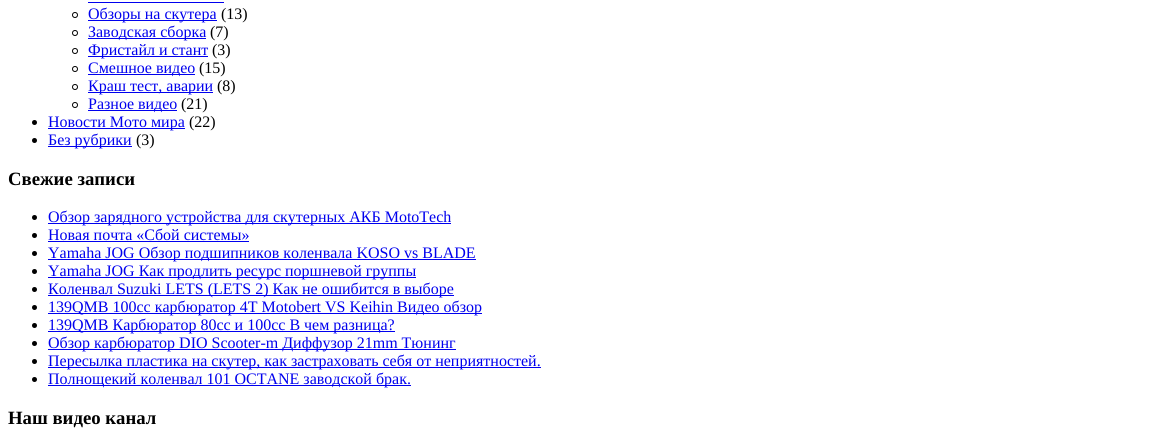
import math
import cairo



def draw(context):
    context.set_source_rgb(1, 1, 1)
    context.paint()
    context.set_source_rgb(0, 0, 238 / 255)
    context.rectangle(88, 2, 136, 1)
    context.fill()
    context.arc(75, 15, 2.5, 0, 2 * math.pi)
    context.set_source_rgb(0, 0, 0)
    context.set_line_width(1)
    context.stroke()
    context.set_source_rgb(0, 0, 238 / 255)
    context.rectangle(88, 20, 129, 1)
    context.fill()
    context.arc(75, 33, 2.5, 0, 2 * math.pi)
    context.set_source_rgb(0, 0, 0)
    context.stroke()
    context.set_source_rgb(0, 0, 238 / 255)
    context.rectangle(88, 38, 118, 1)
    context.fill()
    context.arc(75, 51, 2.5, 0, 2 * math.pi)
    context.set_source_rgb(0, 0, 0)
    context.stroke()
    context.set_source_rgb(0, 0, 238 / 255)
    context.rectangle(88, 56, 120, 1)
    context.fill()
    context.arc(75, 69, 2.5, 0, 2 * math.pi)
    context.set_source_rgb(0, 0, 0)
    context.stroke()
    context.set_source_rgb(0, 0, 238 / 255)
    context.rectangle(88, 74, 107, 1)
    context.fill()
    context.arc(75, 87, 2.5, 0, 2 * math.pi)
    context.set_source_rgb(0, 0, 0)
    context.stroke()
    context.set_source_rgb(0, 0, 238 / 255)
    context.rectangle(88, 92, 125, 1)
    context.fill()
    context.arc(75, 105, 2.5, 0, 2 * math.pi)
    context.set_source_rgb(0, 0, 0)
    context.stroke()
    context.set_source_rgb(0, 0, 238 / 255)
    context.rectangle(88, 110, 89, 1)
    context.fill()
    context.set_source_rgb(0, 0, 0)
    context.arc(34.5, 122.5, 2.5, 0, 2 * math.pi)
    context.fill()
    context.set_source_rgb(0, 0, 238 / 255)
    context.rectangle(48, 128, 137, 1)
    context.fill()
    context.set_source_rgb(0, 0, 0)
    context.arc(34.5, 140.5, 2.5, 0, 2 * math.pi)
    context.fill()
    context.set_source_rgb(0, 0, 238 / 255)
    context.rectangle(48, 146, 84, 1)
    context.fill()
    context.set_source_rgb(0, 0, 0)
    context.arc(34.5, 217.5, 2.5, 0, 2 * math.pi)
    context.fill()
    context.set_source_rgb(0, 0, 238 / 255)
    context.rectangle(48, 223, 403, 1)
    context.fill()
    context.set_source_rgb(0, 0, 0)
    context.arc(34.5, 235.5, 2.5, 0, 2 * math.pi)
    context.fill()
    context.set_source_rgb(0, 0, 238 / 255)
    context.rectangle(48, 241, 201, 1)
    context.fill()
    context.set_source_rgb(0, 0, 0)
    context.arc(34.5, 253.5, 2.5, 0, 2 * math.pi)
    context.fill()
    context.set_source_rgb(0, 0, 238 / 255)
    context.rectangle(48, 259, 428, 1)
    context.fill()
    context.set_source_rgb(0, 0, 0)
    context.arc(34.5, 271.5, 2.5, 0, 2 * math.pi)
    context.fill()
    context.set_source_rgb(0, 0, 238 / 255)
    context.rectangle(48, 277, 368, 1)
    context.fill()
    context.set_source_rgb(0, 0, 0)
    context.arc(34.5, 289.5, 2.5, 0, 2 * math.pi)
    context.fill()
    context.set_source_rgb(0, 0, 238 / 255)
    context.rectangle(48, 295, 406, 1)
    context.fill()
    context.set_source_rgb(0, 0, 0)
    context.arc(34.5, 307.5, 2.5, 0, 2 * math.pi)
    context.fill()
    context.set_source_rgb(0, 0, 238 / 255)
    context.rectangle(48, 313, 434, 1)
    context.fill()
    context.set_source_rgb(0, 0, 0)
    context.arc(34.5, 325.5, 2.5, 0, 2 * math.pi)
    context.fill()
    context.set_source_rgb(0, 0, 238 / 255)
    context.rectangle(48, 331, 347, 1)
    context.fill()
    context.set_source_rgb(0, 0, 0)
    context.arc(34.5, 343.5, 2.5, 0, 2 * math.pi)
    context.fill()
    context.set_source_rgb(0, 0, 238 / 255)
    context.rectangle(48, 349, 408, 1)
    context.fill()
    context.set_source_rgb(0, 0, 0)
    context.arc(34.5, 361.5, 2.5, 0, 2 * math.pi)
    context.fill()
    context.set_source_rgb(0, 0, 238 / 255)
    context.rectangle(48, 367, 493, 1)
    context.fill()
    context.set_source_rgb(0, 0, 0)
    context.arc(34.5, 379.5, 2.5, 0, 2 * math.pi)
    context.fill()
    context.set_source_rgb(0, 0, 238 / 255)
    context.rectangle(48, 385, 363, 1)
    context.fill()
    context.select_font_face("Liberation Serif")
    context.set_font_size(16)
    context.move_to(88, 19)
    context.show_text("Обзоры на скутера")
    context.set_source_rgb(0, 0, 0)
    context.move_to(221, 19)
    context.show_text("(13)")
    context.set_source_rgb(0, 0, 238 / 255)
    context.move_to(88, 37)
    context.show_text("Заводская сборка")
    context.set_source_rgb(0, 0, 0)
    context.move_to(210, 37)
    context.show_text("(7)")
    context.set_source_rgb(0, 0, 238 / 255)
    context.move_to(88, 55)
    context.show_text("Фристайл и стант")
    context.set_source_rgb(0, 0, 0)
    context.move_to(212, 55)
    context.show_text("(3)")
    context.set_source_rgb(0, 0, 238 / 255)
    context.move_to(88, 73)
    context.show_text("Смешное видео")
    context.set_source_rgb(0, 0, 0)
    context.move_to(199, 73)
    context.show_text("(15)")
    context.set_source_rgb(0, 0, 238 / 255)
    context.move_to(88, 91)
    context.show_text("Краш тест, аварии")
    context.set_source_rgb(0, 0, 0)
    context.move_to(217, 91)
    context.show_text("(8)")
    context.set_source_rgb(0, 0, 238 / 255)
    context.move_to(88, 109)
    context.show_text("Разное видео")
    context.set_source_rgb(0, 0, 0)
    context.move_to(181, 109)
    context.show_text("(21)")
    context.set_source_rgb(0, 0, 238 / 255)
    context.move_to(48, 127)
    context.show_text("Новости Мото мира")
    context.set_source_rgb(0, 0, 0)
    context.move_to(189, 127)
    context.show_text("(22)")
    context.set_source_rgb(0, 0, 238 / 255)
    context.move_to(48, 145)
    context.show_text("Без рубрики")
    context.set_source_rgb(0, 0, 0)
    context.move_to(136, 145)
    context.show_text("(3)")
    context.select_font_face("Liberation Serif", cairo.FontSlant.NORMAL, cairo.FontWeight.BOLD)
    context.set_font_size(18.75)
    context.move_to(8, 185)
    context.show_text("Свежие записи")
    context.select_font_face("Liberation Serif")
    context.set_font_size(16)
    context.set_source_rgb(0, 0, 238 / 255)
    context.move_to(48, 222)
    context.show_text("Обзор зарядного устройства для скутерных АКБ MotoTech")
    context.move_to(48, 240)
    context.show_text("Новая почта «Сбой системы»")
    context.move_to(48, 258)
    context.show_text("Yamaha JOG Обзор подшипников коленвала KOSO vs BLADE")
    context.move_to(48, 276)
    context.show_text("Yamaha JOG Как продлить ресурс поршневой группы")
    context.move_to(48, 294)
    context.show_text("Коленвал Suzuki LETS (LETS 2) Как не ошибится в выборе")
    context.move_to(48, 312)
    context.show_text("139QMB 100cc карбюратор 4Т Motobert VS Keihin Видео обзор")
    context.move_to(48, 330)
    context.show_text("139QMB Карбюратор 80сс и 100сс В чем разница?")
    context.move_to(48, 348)
    context.show_text("Обзор карбюратор DIO Scooter-m Диффузор 21mm Тюнинг")
    context.move_to(48, 366)
    context.show_text("Пересылка пластика на скутер, как застраховать себя от неприятностей.")
    context.move_to(48, 384)
    context.show_text("Полнощекий коленвал 101 OCTANE заводской брак.")
    context.select_font_face("Liberation Serif", cairo.FontSlant.NORMAL, cairo.FontWeight.BOLD)
    context.set_font_size(18.75)
    context.set_source_rgb(0, 0, 0)
    context.move_to(8, 424)
    context.show_text("Наш видео канал")


surface = cairo.ImageSurface(cairo.Format.RGB24, 1170, 435)
context = cairo.Context(surface)
options = cairo.FontOptions()
options.set_hint_metrics(cairo.HintMetrics.OFF)
options.set_hint_style(cairo.HintStyle.NONE)
context.set_font_options(options)
context.set_miter_limit(4)
draw(context)
surface.write_to_png("out.png")
